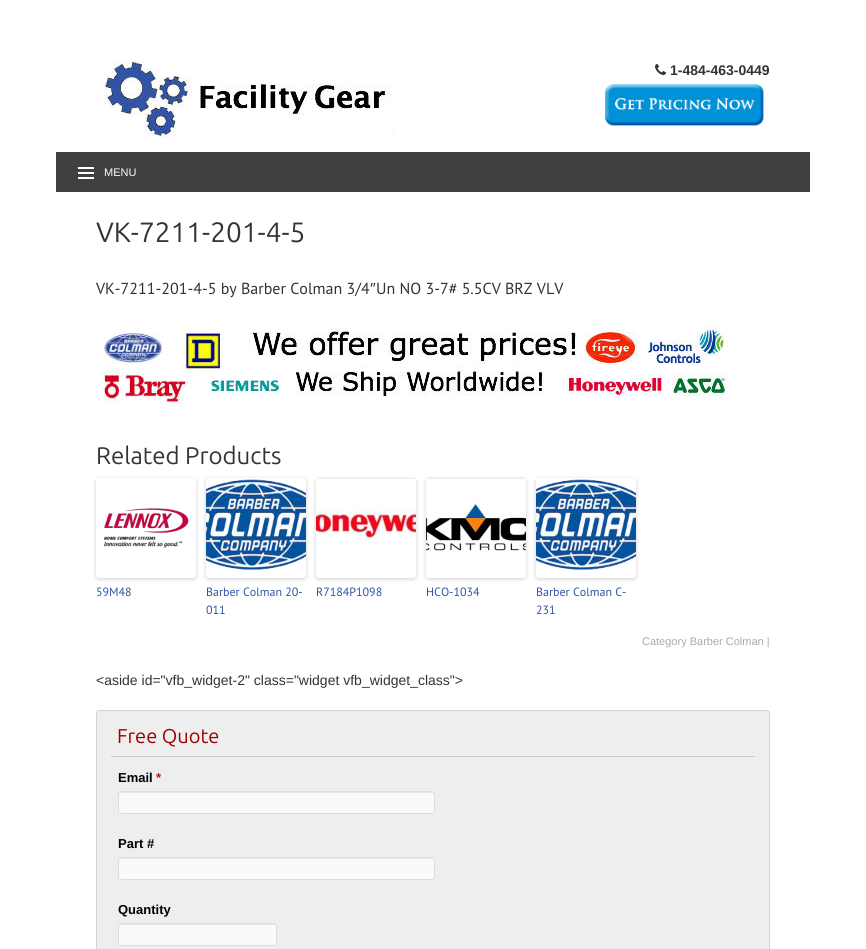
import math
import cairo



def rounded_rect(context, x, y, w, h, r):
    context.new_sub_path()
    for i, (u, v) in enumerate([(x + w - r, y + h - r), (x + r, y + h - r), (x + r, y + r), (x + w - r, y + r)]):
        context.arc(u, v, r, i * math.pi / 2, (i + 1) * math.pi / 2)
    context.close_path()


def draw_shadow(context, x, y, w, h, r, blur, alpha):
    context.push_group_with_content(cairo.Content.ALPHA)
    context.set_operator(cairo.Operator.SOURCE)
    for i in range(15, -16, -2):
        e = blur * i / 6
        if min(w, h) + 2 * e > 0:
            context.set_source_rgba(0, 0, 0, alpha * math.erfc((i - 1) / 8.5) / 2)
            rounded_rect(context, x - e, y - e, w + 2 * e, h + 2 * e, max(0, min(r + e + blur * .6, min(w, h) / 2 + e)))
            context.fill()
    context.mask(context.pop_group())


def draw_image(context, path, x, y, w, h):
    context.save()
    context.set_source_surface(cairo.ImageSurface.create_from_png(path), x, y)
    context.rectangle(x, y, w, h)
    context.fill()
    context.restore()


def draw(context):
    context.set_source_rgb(1, 1, 1)
    context.paint()
    draw_image(context, "images/1.png", 104, 60, 292, 77)
    draw_image(context, "images/2.png", 655, 64, 11, 11)
    draw_image(context, "images/3.png", 605, 84, 159, 42)
    context.set_source_rgb(64 / 255, 64 / 255, 64 / 255)
    context.rectangle(56, 152, 754, 40)
    context.fill()
    draw_image(context, "images/4.png", 78, 167, 16, 12)
    draw_image(context, "images/5.png", 104, 324, 624, 80)
    context.save()
    context.set_fill_rule(cairo.FillRule.EVEN_ODD)
    context.new_path()
    context.move_to(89, 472)
    context.line_to(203, 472)
    context.line_to(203, 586)
    context.line_to(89, 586)
    context.close_path()
    context.move_to(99, 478)
    context.line_to(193, 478)
    context.curve_to(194.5, 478, 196, 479.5, 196, 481)
    context.line_to(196, 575)
    context.curve_to(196, 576.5, 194.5, 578, 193, 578)
    context.line_to(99, 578)
    context.curve_to(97.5, 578, 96, 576.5, 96, 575)
    context.line_to(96, 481)
    context.curve_to(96, 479.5, 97.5, 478, 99, 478)
    context.close_path()
    context.clip()
    context.set_source_rgb(0, 0, 0)
    draw_shadow(context, 96, 479, 100, 100, 3, 2, 0.2)
    context.restore()
    draw_image(context, "images/6.png", 103, 508, 86, 40)
    context.save()
    context.set_fill_rule(cairo.FillRule.EVEN_ODD)
    context.new_path()
    context.move_to(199, 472)
    context.line_to(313, 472)
    context.line_to(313, 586)
    context.line_to(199, 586)
    context.close_path()
    context.move_to(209, 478)
    context.line_to(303, 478)
    context.curve_to(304.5, 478, 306, 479.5, 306, 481)
    context.line_to(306, 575)
    context.curve_to(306, 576.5, 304.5, 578, 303, 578)
    context.line_to(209, 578)
    context.curve_to(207.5, 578, 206, 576.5, 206, 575)
    context.line_to(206, 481)
    context.curve_to(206, 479.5, 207.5, 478, 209, 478)
    context.close_path()
    context.clip()
    context.set_source_rgb(0, 0, 0)
    draw_shadow(context, 206, 479, 100, 100, 3, 2, 0.2)
    context.restore()
    draw_image(context, "images/7.png", 206, 479, 100, 91)
    context.set_source_rgb(0, 0, 0)
    draw_shadow(context, 316, 479, 100, 100, 3, 2, 0.2)
    draw_image(context, "images/8.png", 316, 479, 100, 99)
    draw_shadow(context, 426, 479, 100, 100, 3, 2, 0.2)
    draw_image(context, "images/9.png", 426, 479, 100, 99)
    context.save()
    context.set_fill_rule(cairo.FillRule.EVEN_ODD)
    context.new_path()
    context.move_to(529, 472)
    context.line_to(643, 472)
    context.line_to(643, 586)
    context.line_to(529, 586)
    context.close_path()
    context.move_to(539, 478)
    context.line_to(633, 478)
    context.curve_to(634.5, 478, 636, 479.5, 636, 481)
    context.line_to(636, 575)
    context.curve_to(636, 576.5, 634.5, 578, 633, 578)
    context.line_to(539, 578)
    context.curve_to(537.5, 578, 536, 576.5, 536, 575)
    context.line_to(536, 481)
    context.curve_to(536, 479.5, 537.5, 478, 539, 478)
    context.close_path()
    context.clip()
    draw_shadow(context, 536, 479, 100, 100, 3, 2, 0.2)
    context.restore()
    draw_image(context, "images/7.png", 536, 479, 100, 91)
    context.set_source_rgb(238 / 255, 238 / 255, 238 / 255)
    rounded_rect(context, 96.5, 710.5, 673, 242, 2.5)
    context.fill_preserve()
    context.set_source_rgb(211 / 255, 211 / 255, 211 / 255)
    context.set_line_width(1)
    context.stroke()
    context.set_source_rgb(204 / 255, 204 / 255, 204 / 255)
    context.rectangle(111, 756, 644, 1)
    context.fill()
    context.set_source_rgb(250 / 255, 250 / 255, 250 / 255)
    rounded_rect(context, 118, 791, 317, 23, 3)
    context.fill()
    context.set_source_rgb(231 / 255, 231 / 255, 231 / 255)
    context.new_path()
    context.move_to(121, 793)
    context.line_to(432, 793)
    context.curve_to(433, 793, 434, 794, 434, 795)
    context.curve_to(434, 794, 434, 792, 432, 792)
    context.line_to(120, 792)
    context.line_to(119, 793)
    context.line_to(119, 795)
    context.curve_to(119, 794, 120, 793, 121, 793)
    context.close_path()
    context.fill()
    rounded_rect(context, 118.5, 791.5, 316, 22, 2.5)
    context.set_source_rgb(221 / 255, 221 / 255, 221 / 255)
    context.stroke()
    context.set_source_rgb(250 / 255, 250 / 255, 250 / 255)
    rounded_rect(context, 118, 857, 317, 23, 3)
    context.fill()
    context.set_source_rgb(231 / 255, 231 / 255, 231 / 255)
    context.new_path()
    context.move_to(121, 859)
    context.line_to(432, 859)
    context.curve_to(433, 859, 434, 860, 434, 861)
    context.curve_to(434, 860, 434, 858, 432, 858)
    context.line_to(120, 858)
    context.line_to(119, 859)
    context.line_to(119, 861)
    context.curve_to(119, 860, 120, 859, 121, 859)
    context.close_path()
    context.fill()
    rounded_rect(context, 118.5, 857.5, 316, 22, 2.5)
    context.set_source_rgb(221 / 255, 221 / 255, 221 / 255)
    context.stroke()
    context.set_source_rgb(250 / 255, 250 / 255, 250 / 255)
    rounded_rect(context, 118, 923, 159, 23, 3)
    context.fill()
    context.set_source_rgb(231 / 255, 231 / 255, 231 / 255)
    context.new_path()
    context.move_to(121, 925)
    context.line_to(274, 925)
    context.curve_to(275, 925, 276, 926, 276, 927)
    context.curve_to(276, 926, 276, 924, 274, 924)
    context.line_to(121, 924)
    context.curve_to(119, 924, 119, 926, 119, 927)
    context.curve_to(119, 926, 120, 925, 121, 925)
    context.close_path()
    context.fill()
    rounded_rect(context, 118.5, 923.5, 158, 22, 2.5)
    context.set_source_rgb(221 / 255, 221 / 255, 221 / 255)
    context.stroke()
    context.select_font_face("Liberation Sans", cairo.FontSlant.NORMAL, cairo.FontWeight.BOLD)
    context.set_font_size(14)
    context.set_source_rgb(51 / 255, 51 / 255, 51 / 255)
    context.move_to(670, 75)
    context.show_text("1-484-463-0449")
    context.select_font_face("Liberation Sans")
    context.set_font_size(11)
    context.set_source_rgb(1, 1, 1)
    context.move_to(104, 176)
    context.show_text("MENU")
    context.select_font_face("Ubuntu")
    context.set_font_size(28)
    context.set_source_rgb(51 / 255, 51 / 255, 51 / 255)
    context.move_to(96, 242)
    context.show_text("VK-7211-201-4-5")
    context.select_font_face("PT Sans")
    context.set_font_size(16)
    context.move_to(96, 294)
    context.show_text("VK-7211-201-4-5 by Barber Colman 3/4")
    context.select_font_face("Liberation Sans")
    context.move_to(370, 294)
    context.show_text("″")
    context.select_font_face("PT Sans")
    context.move_to(376, 294)
    context.show_text("Un NO 3-7# 5.5CV BRZ VLV")
    context.select_font_face("Ubuntu")
    context.set_font_size(24)
    context.move_to(96, 464)
    context.show_text("Related Products")
    context.select_font_face("PT Sans")
    context.set_font_size(12)
    context.set_source_rgb(50 / 255, 83 / 255, 168 / 255)
    context.move_to(96, 596)
    context.show_text("59M48")
    context.move_to(206, 596)
    context.show_text("Barber Colman 20-")
    context.move_to(206, 614)
    context.show_text("011")
    context.move_to(316, 596)
    context.show_text("R7184P1098")
    context.move_to(426, 596)
    context.show_text("HCO-1034")
    context.move_to(536, 596)
    context.show_text("Barber Colman C-")
    context.move_to(536, 614)
    context.show_text("231")
    context.select_font_face("Liberation Sans")
    context.set_font_size(11)
    context.set_source_rgb(170 / 255, 170 / 255, 170 / 255)
    context.move_to(642, 645)
    context.show_text("Category Barber Colman |")
    context.set_font_size(14)
    context.set_source_rgb(51 / 255, 51 / 255, 51 / 255)
    context.move_to(96, 685)
    context.show_text("<aside id=\"vfb_widget-2\" class=\"widget vfb_widget_class\">")
    context.select_font_face("Ubuntu")
    context.set_font_size(20)
    context.set_source_rgb(153 / 255, 0, 0)
    context.move_to(117, 743)
    context.show_text("Free Quote")
    context.select_font_face("Liberation Sans", cairo.FontSlant.NORMAL, cairo.FontWeight.BOLD)
    context.set_font_size(13)
    context.set_source_rgb(0, 0, 0)
    context.move_to(118, 782)
    context.show_text("Email")
    context.set_source_rgb(188 / 255, 18 / 255, 18 / 255)
    context.move_to(156, 782)
    context.show_text("*")
    context.set_source_rgb(0, 0, 0)
    context.move_to(118, 848)
    context.show_text("Part #")
    context.move_to(118, 914)
    context.show_text("Quantity")


surface = cairo.ImageSurface(cairo.Format.RGB24, 866, 949)
context = cairo.Context(surface)
options = cairo.FontOptions()
options.set_hint_metrics(cairo.HintMetrics.OFF)
options.set_hint_style(cairo.HintStyle.NONE)
context.set_font_options(options)
context.set_miter_limit(4)
draw(context)
surface.write_to_png("out.png")
